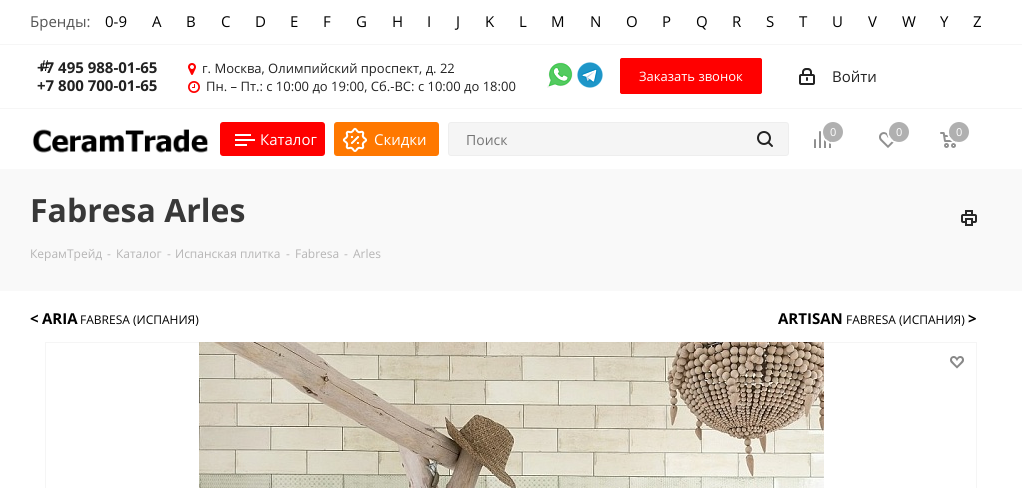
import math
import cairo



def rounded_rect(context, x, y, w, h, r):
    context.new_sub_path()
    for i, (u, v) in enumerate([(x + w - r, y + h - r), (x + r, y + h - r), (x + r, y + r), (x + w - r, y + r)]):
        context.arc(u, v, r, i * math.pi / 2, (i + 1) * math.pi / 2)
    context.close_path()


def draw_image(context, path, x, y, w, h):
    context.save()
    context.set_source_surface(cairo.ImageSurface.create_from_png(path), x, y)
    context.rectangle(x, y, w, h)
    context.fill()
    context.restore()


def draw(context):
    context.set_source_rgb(1, 1, 1)
    context.paint()
    context.set_source_rgb(246 / 255, 246 / 255, 246 / 255)
    context.rectangle(0, 108, 1022, 1)
    context.fill()
    context.rectangle(0, 44, 1022, 1)
    context.fill()
    draw_image(context, "images/1.png", 188, 63, 8, 12)
    draw_image(context, "images/2.png", 188, 81, 12, 12)
    draw_image(context, "images/3.png", 547, 62, 26, 26)
    draw_image(context, "images/4.png", 577, 62, 26, 26)
    context.set_source_rgb(1, 0, 0)
    rounded_rect(context, 620.5, 58.5, 141, 35, 1.5)
    context.fill_preserve()
    context.set_line_width(1)
    context.stroke()
    context.set_source_rgb(34 / 255, 34 / 255, 34 / 255)
    context.rectangle(799, 68, 16, 17)
    context.fill()
    draw_image(context, "images/5.png", 799, 68, 16, 17)
    draw_image(context, "images/6.png", 814, 131, 17, 17)
    context.arc(833, 132, 11, 0, 2 * math.pi)
    context.set_source_rgb(1, 1, 1)
    context.set_line_width(2)
    context.stroke()
    context.set_source_rgb(176 / 255, 176 / 255, 176 / 255)
    context.arc(833, 132, 10, 0, 2 * math.pi)
    context.fill()
    draw_image(context, "images/7.png", 879, 132, 16, 16)
    context.arc(899, 132, 11, 0, 2 * math.pi)
    context.set_source_rgb(1, 1, 1)
    context.stroke()
    context.set_source_rgb(176 / 255, 176 / 255, 176 / 255)
    context.arc(899, 132, 10, 0, 2 * math.pi)
    context.fill()
    draw_image(context, "images/8.png", 940, 132, 16, 16)
    context.arc(959, 132, 11, 0, 2 * math.pi)
    context.set_source_rgb(1, 1, 1)
    context.stroke()
    context.set_source_rgb(176 / 255, 176 / 255, 176 / 255)
    context.arc(959, 132, 10, 0, 2 * math.pi)
    context.fill()
    draw_image(context, "images/9.png", 32, 129, 177, 24)
    context.set_source_rgb(1, 0, 0)
    rounded_rect(context, 220, 122, 105, 34, 3)
    context.fill()
    context.set_source_rgb(1, 1, 1)
    context.rectangle(235, 144, 12, 2)
    context.fill()
    context.rectangle(235, 134, 16, 2)
    context.fill()
    context.rectangle(235, 139, 20, 2)
    context.fill()
    context.set_source_rgb(1, 120 / 255, 0)
    rounded_rect(context, 334, 122, 105, 34, 3)
    context.fill()
    draw_image(context, "images/10.png", 342, 127, 25, 25)
    context.set_source_rgb(245 / 255, 245 / 255, 245 / 255)
    rounded_rect(context, 448.5, 122.5, 340, 33, 2.5)
    context.fill_preserve()
    context.set_source_rgb(238 / 255, 238 / 255, 238 / 255)
    context.set_line_width(1)
    context.stroke()
    draw_image(context, "images/11.png", 757, 131, 16, 16)
    context.set_source_rgb(249 / 255, 249 / 255, 249 / 255)
    context.rectangle(0, 169, 1022, 122)
    context.fill()
    draw_image(context, "images/12.png", 961, 210, 16, 16)
    context.rectangle(45.5, 342.5, 931, 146)
    context.set_source_rgb(245 / 255, 245 / 255, 245 / 255)
    context.stroke()
    draw_image(context, "images/13.png", 199, 342, 625, 146)
    draw_image(context, "images/14.png", 950, 356, 14, 13)
    context.select_font_face("Open Sans")
    context.set_font_size(15)
    context.set_source_rgb(85 / 255, 85 / 255, 85 / 255)
    context.move_to(30, 27)
    context.show_text("Бренды:")
    context.set_source_rgb(0, 0, 0)
    context.move_to(105, 27)
    context.show_text("0-9")
    context.move_to(152, 27)
    context.show_text("A")
    context.move_to(186, 27)
    context.show_text("B")
    context.move_to(221, 27)
    context.show_text("C")
    context.move_to(255, 27)
    context.show_text("D")
    context.move_to(290, 27)
    context.show_text("E")
    context.move_to(323, 27)
    context.show_text("F")
    context.move_to(356, 27)
    context.show_text("G")
    context.move_to(392, 27)
    context.show_text("H")
    context.move_to(427, 27)
    context.show_text("I")
    context.move_to(456, 27)
    context.show_text("J")
    context.move_to(485, 27)
    context.show_text("K")
    context.move_to(519, 27)
    context.show_text("L")
    context.move_to(551, 27)
    context.show_text("M")
    context.move_to(590, 27)
    context.show_text("N")
    context.move_to(626, 27)
    context.show_text("O")
    context.move_to(662, 27)
    context.show_text("P")
    context.move_to(696, 27)
    context.show_text("Q")
    context.move_to(732, 27)
    context.show_text("R")
    context.move_to(766, 27)
    context.show_text("S")
    context.move_to(799, 27)
    context.show_text("T")
    context.move_to(832, 27)
    context.show_text("U")
    context.move_to(868, 27)
    context.show_text("V")
    context.move_to(902, 27)
    context.show_text("W")
    context.move_to(940, 27)
    context.show_text("Y")
    context.move_to(973, 27)
    context.show_text("Z")
    context.move_to(40, 71)
    context.show_text("#")
    context.select_font_face("Open Sans", cairo.FontSlant.NORMAL, cairo.FontWeight.BOLD)
    context.set_source_rgb(34 / 255, 34 / 255, 34 / 255)
    context.move_to(37, 73)
    context.show_text("+7 495 988-01-65")
    context.move_to(37, 91)
    context.show_text("+7 800 700-01-65")
    context.select_font_face("Open Sans")
    context.set_font_size(13)
    context.move_to(202, 73)
    context.show_text("г. Москва, Олимпийский проспект, д. 22")
    context.move_to(206, 91)
    context.show_text("Пн. – Пт.: с 10:00 до 19:00, Сб.-ВС: с 10:00 до 18:00")
    context.set_source_rgb(1, 1, 1)
    context.move_to(639, 81)
    context.show_text("Заказать звонок")
    context.set_font_size(15)
    context.set_source_rgb(34 / 255, 34 / 255, 34 / 255)
    context.move_to(832, 82)
    context.show_text("Войти")
    context.set_font_size(11)
    context.set_source_rgb(1, 1, 1)
    context.move_to(830, 136)
    context.show_text("0")
    context.move_to(896, 136)
    context.show_text("0")
    context.move_to(956, 136)
    context.show_text("0")
    context.set_font_size(15)
    context.move_to(260, 145)
    context.show_text("Каталог")
    context.move_to(374, 145)
    context.show_text("Скидки")
    context.set_font_size(14)
    context.set_source_rgb(117 / 255, 117 / 255, 117 / 255)
    context.move_to(466, 145)
    context.show_text("Поиск")
    context.select_font_face("Open Sans", cairo.FontSlant.NORMAL, cairo.FontWeight.BOLD)
    context.set_font_size(32)
    context.set_source_rgb(56 / 255, 56 / 255, 56 / 255)
    context.move_to(30, 222)
    context.show_text("Fabresa Arles")
    context.select_font_face("Open Sans")
    context.set_font_size(12)
    context.set_source_rgb(182 / 255, 181 / 255, 181 / 255)
    context.move_to(30, 258)
    context.show_text("КерамТрейд")
    context.move_to(107, 258)
    context.show_text("-")
    context.move_to(116, 258)
    context.show_text("Каталог")
    context.move_to(167, 258)
    context.show_text("-")
    context.move_to(175, 258)
    context.show_text("Испанская плитка")
    context.move_to(286, 258)
    context.show_text("-")
    context.move_to(295, 258)
    context.show_text("Fabresa")
    context.move_to(344, 258)
    context.show_text("-")
    context.move_to(353, 258)
    context.show_text("Arles")
    context.select_font_face("Open Sans", cairo.FontSlant.NORMAL, cairo.FontWeight.BOLD)
    context.set_font_size(15)
    context.set_source_rgb(0, 0, 0)
    context.move_to(30, 324)
    context.show_text("<")
    context.move_to(42, 324)
    context.show_text("ARIA")
    context.select_font_face("Open Sans")
    context.set_font_size(12)
    context.move_to(80, 324)
    context.show_text("FABRESA (ИСПАНИЯ)")
    context.select_font_face("Open Sans", cairo.FontSlant.NORMAL, cairo.FontWeight.BOLD)
    context.set_font_size(15)
    context.move_to(778, 324)
    context.show_text("ARTISAN")
    context.select_font_face("Open Sans")
    context.set_font_size(12)
    context.move_to(846, 324)
    context.show_text("FABRESA (ИСПАНИЯ)")
    context.select_font_face("Open Sans", cairo.FontSlant.NORMAL, cairo.FontWeight.BOLD)
    context.set_font_size(15)
    context.move_to(968, 324)
    context.show_text(">")


surface = cairo.ImageSurface(cairo.Format.RGB24, 1022, 488)
context = cairo.Context(surface)
options = cairo.FontOptions()
options.set_hint_metrics(cairo.HintMetrics.OFF)
options.set_hint_style(cairo.HintStyle.NONE)
context.set_font_options(options)
context.set_miter_limit(4)
draw(context)
surface.write_to_png("out.png")
